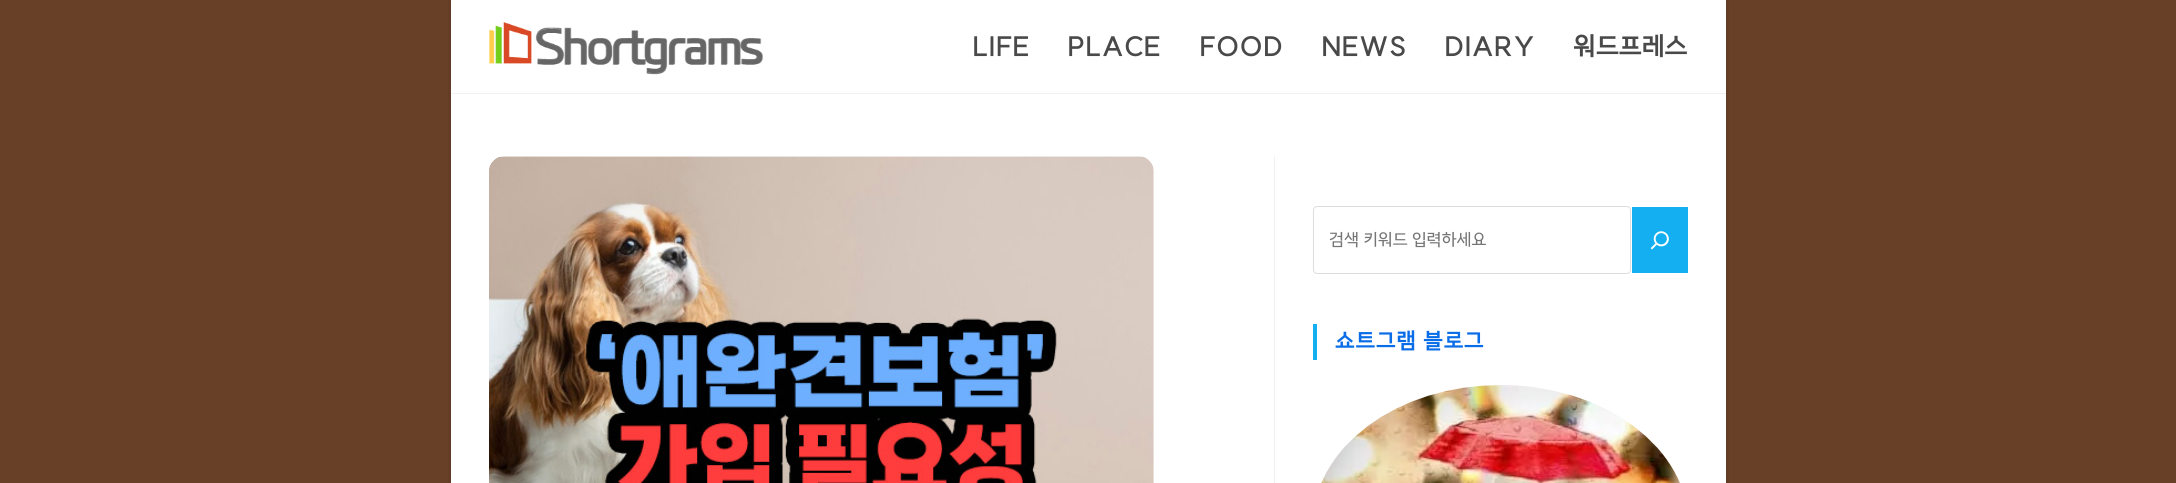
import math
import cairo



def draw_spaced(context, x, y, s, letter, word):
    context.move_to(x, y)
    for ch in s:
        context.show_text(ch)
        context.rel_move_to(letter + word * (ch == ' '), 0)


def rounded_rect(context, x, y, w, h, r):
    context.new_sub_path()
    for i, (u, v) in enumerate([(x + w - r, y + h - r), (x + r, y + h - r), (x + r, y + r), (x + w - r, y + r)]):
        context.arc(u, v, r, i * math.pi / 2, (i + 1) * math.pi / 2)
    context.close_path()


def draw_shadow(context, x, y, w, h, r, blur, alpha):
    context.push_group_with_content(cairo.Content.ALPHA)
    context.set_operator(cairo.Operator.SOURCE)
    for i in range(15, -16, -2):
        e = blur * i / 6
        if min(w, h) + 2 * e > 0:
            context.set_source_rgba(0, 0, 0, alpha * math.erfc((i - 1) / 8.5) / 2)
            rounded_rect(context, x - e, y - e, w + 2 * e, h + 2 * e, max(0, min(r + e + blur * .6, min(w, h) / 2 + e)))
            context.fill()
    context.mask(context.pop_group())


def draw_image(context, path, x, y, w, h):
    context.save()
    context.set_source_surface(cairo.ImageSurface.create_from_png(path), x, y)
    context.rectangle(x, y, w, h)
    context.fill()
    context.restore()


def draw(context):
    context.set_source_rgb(104 / 255, 63 / 255, 39 / 255)
    context.paint()
    context.set_source_rgb(0, 0, 0)
    draw_shadow(context, 451, 1, 1275, 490, 0, 2.5, 0.15)
    context.set_source_rgb(1, 1, 1)
    context.rectangle(451, 0, 1275, 483)
    context.fill()
    context.set_source_rgb(241 / 255, 241 / 255, 241 / 255)
    context.rectangle(451, 93, 1275, 1)
    context.fill()
    draw_image(context, "images/1.png", 489, 22, 274, 53)
    context.rectangle(1274, 156, 1, 327)
    context.fill()
    draw_image(context, "images/2.png", 489, 156, 665, 327)
    rounded_rect(context, 1313.5, 206.5, 317, 67, 3.5)
    context.set_source_rgb(221 / 255, 221 / 255, 221 / 255)
    context.set_line_width(1)
    context.stroke()
    context.set_source_rgb(19 / 255, 175 / 255, 240 / 255)
    context.rectangle(1632, 207, 56, 66)
    context.fill()
    draw_image(context, "images/3.png", 1650, 231, 19, 19)
    context.rectangle(1313, 324, 4, 36)
    context.fill()
    draw_image(context, "images/4.png", 1321, 385, 359, 98)
    context.select_font_face("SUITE", cairo.FontSlant.NORMAL, cairo.FontWeight.BOLD)
    context.set_font_size(26.25)
    context.set_source_rgb(73 / 255, 73 / 255, 73 / 255)
    draw_spaced(context, 972, 56, "LIFE", 0.5, 0)
    draw_spaced(context, 1067, 56, "PLACE", 0.5, 0)
    draw_spaced(context, 1199, 56, "FOOD", 0.5, 0)
    draw_spaced(context, 1321, 56, "NEWS", 0.5, 0)
    draw_spaced(context, 1444, 56, "DIARY", 0.5, 0)
    draw_spaced(context, 1573, 56, "워드프레스", 0.5, 0)
    context.select_font_face("SUITE Medium")
    context.set_font_size(17.5)
    context.set_source_rgb(117 / 255, 117 / 255, 117 / 255)
    context.move_to(1329, 246)
    context.show_text("검색 키워드 입력하세요")
    context.select_font_face("SUITE", cairo.FontSlant.NORMAL, cairo.FontWeight.BOLD)
    context.set_font_size(22.5)
    context.set_source_rgb(9 / 255, 109 / 255, 232 / 255)
    draw_spaced(context, 1335, 349, "쇼트그램 블로그", 1.25, 0)


surface = cairo.ImageSurface(cairo.Format.RGB24, 2176, 483)
context = cairo.Context(surface)
options = cairo.FontOptions()
options.set_hint_metrics(cairo.HintMetrics.OFF)
options.set_hint_style(cairo.HintStyle.NONE)
context.set_font_options(options)
context.set_miter_limit(4)
draw(context)
surface.write_to_png("out.png")
